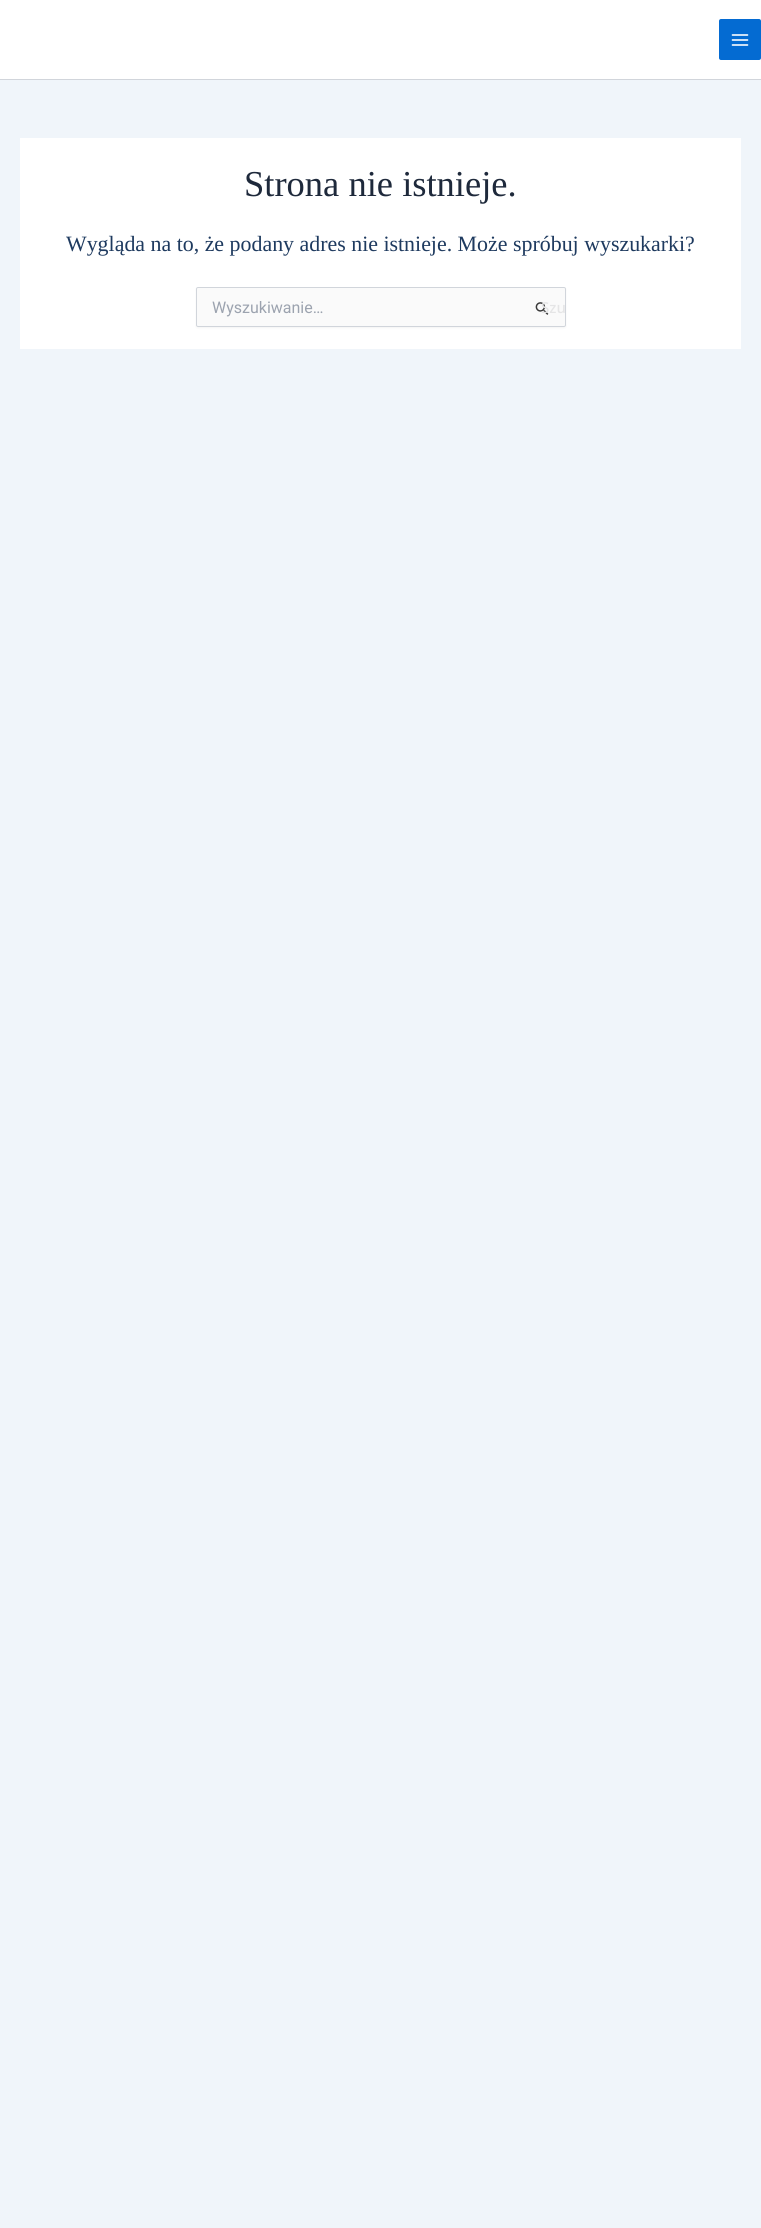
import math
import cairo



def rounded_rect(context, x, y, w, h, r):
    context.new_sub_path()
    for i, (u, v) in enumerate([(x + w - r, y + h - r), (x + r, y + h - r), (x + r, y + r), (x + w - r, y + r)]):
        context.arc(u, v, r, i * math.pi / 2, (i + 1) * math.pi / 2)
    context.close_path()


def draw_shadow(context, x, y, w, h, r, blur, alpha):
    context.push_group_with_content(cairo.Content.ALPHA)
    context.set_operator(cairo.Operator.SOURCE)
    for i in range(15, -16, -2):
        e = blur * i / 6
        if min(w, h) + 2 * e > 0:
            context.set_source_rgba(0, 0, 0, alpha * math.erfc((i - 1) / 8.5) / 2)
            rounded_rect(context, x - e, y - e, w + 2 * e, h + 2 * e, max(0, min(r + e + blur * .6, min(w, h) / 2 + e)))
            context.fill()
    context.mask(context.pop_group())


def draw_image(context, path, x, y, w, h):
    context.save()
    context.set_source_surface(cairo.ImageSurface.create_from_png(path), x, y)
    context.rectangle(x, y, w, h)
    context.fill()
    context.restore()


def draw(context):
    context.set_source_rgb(240 / 255, 245 / 255, 250 / 255)
    context.paint()
    context.set_source_rgb(1, 1, 1)
    context.rectangle(0, 0, 761, 79)
    context.fill()
    context.set_source_rgb(209 / 255, 213 / 255, 219 / 255)
    context.rectangle(0, 79, 761, 1)
    context.fill()
    context.set_source_rgb(4 / 255, 107 / 255, 210 / 255)
    rounded_rect(context, 719, 19, 42, 41, 2)
    context.fill()
    draw_image(context, "images/1.png", 731, 34, 18, 12)
    context.set_source_rgb(1, 1, 1)
    context.rectangle(20, 138, 721, 211)
    context.fill()
    context.set_source_rgb(0, 0, 0)
    draw_shadow(context, 196, 288, 370, 40, 2, 1, 0.05)
    context.set_source_rgb(250 / 255, 250 / 255, 250 / 255)
    rounded_rect(context, 196.5, 287.5, 369, 39, 1.5)
    context.fill_preserve()
    context.set_source_rgb(209 / 255, 213 / 255, 219 / 255)
    context.set_line_width(1)
    context.stroke()
    draw_image(context, "images/2.png", 535, 302, 14, 13)
    context.select_font_face("Liberation Serif")
    context.set_font_size(36.5)
    context.set_source_rgb(30 / 255, 41 / 255, 59 / 255)
    context.move_to(244, 196)
    context.show_text("Strona nie istnieje.")
    context.set_font_size(21.9)
    context.set_source_rgb(30 / 255, 58 / 255, 95 / 255)
    context.move_to(66, 251)
    context.show_text("Wygląda na to, że podany adres nie istnieje. Może spróbuj wyszukarki?")
    context.select_font_face("Roboto")
    context.set_font_size(16)
    context.set_source_rgb(156 / 255, 163 / 255, 175 / 255)
    context.move_to(212, 313)
    context.show_text("Wyszukiwanie…")
    context.select_font_face("Noto Sans Medium")
    context.set_font_size(15)
    context.set_source_rgb(229 / 255, 229 / 255, 230 / 255)
    context.move_to(541, 313)
    context.show_text("Szu")


surface = cairo.ImageSurface(cairo.Format.RGB24, 761, 2228)
context = cairo.Context(surface)
options = cairo.FontOptions()
options.set_hint_metrics(cairo.HintMetrics.OFF)
options.set_hint_style(cairo.HintStyle.NONE)
context.set_font_options(options)
context.set_miter_limit(4)
draw(context)
surface.write_to_png("out.png")
